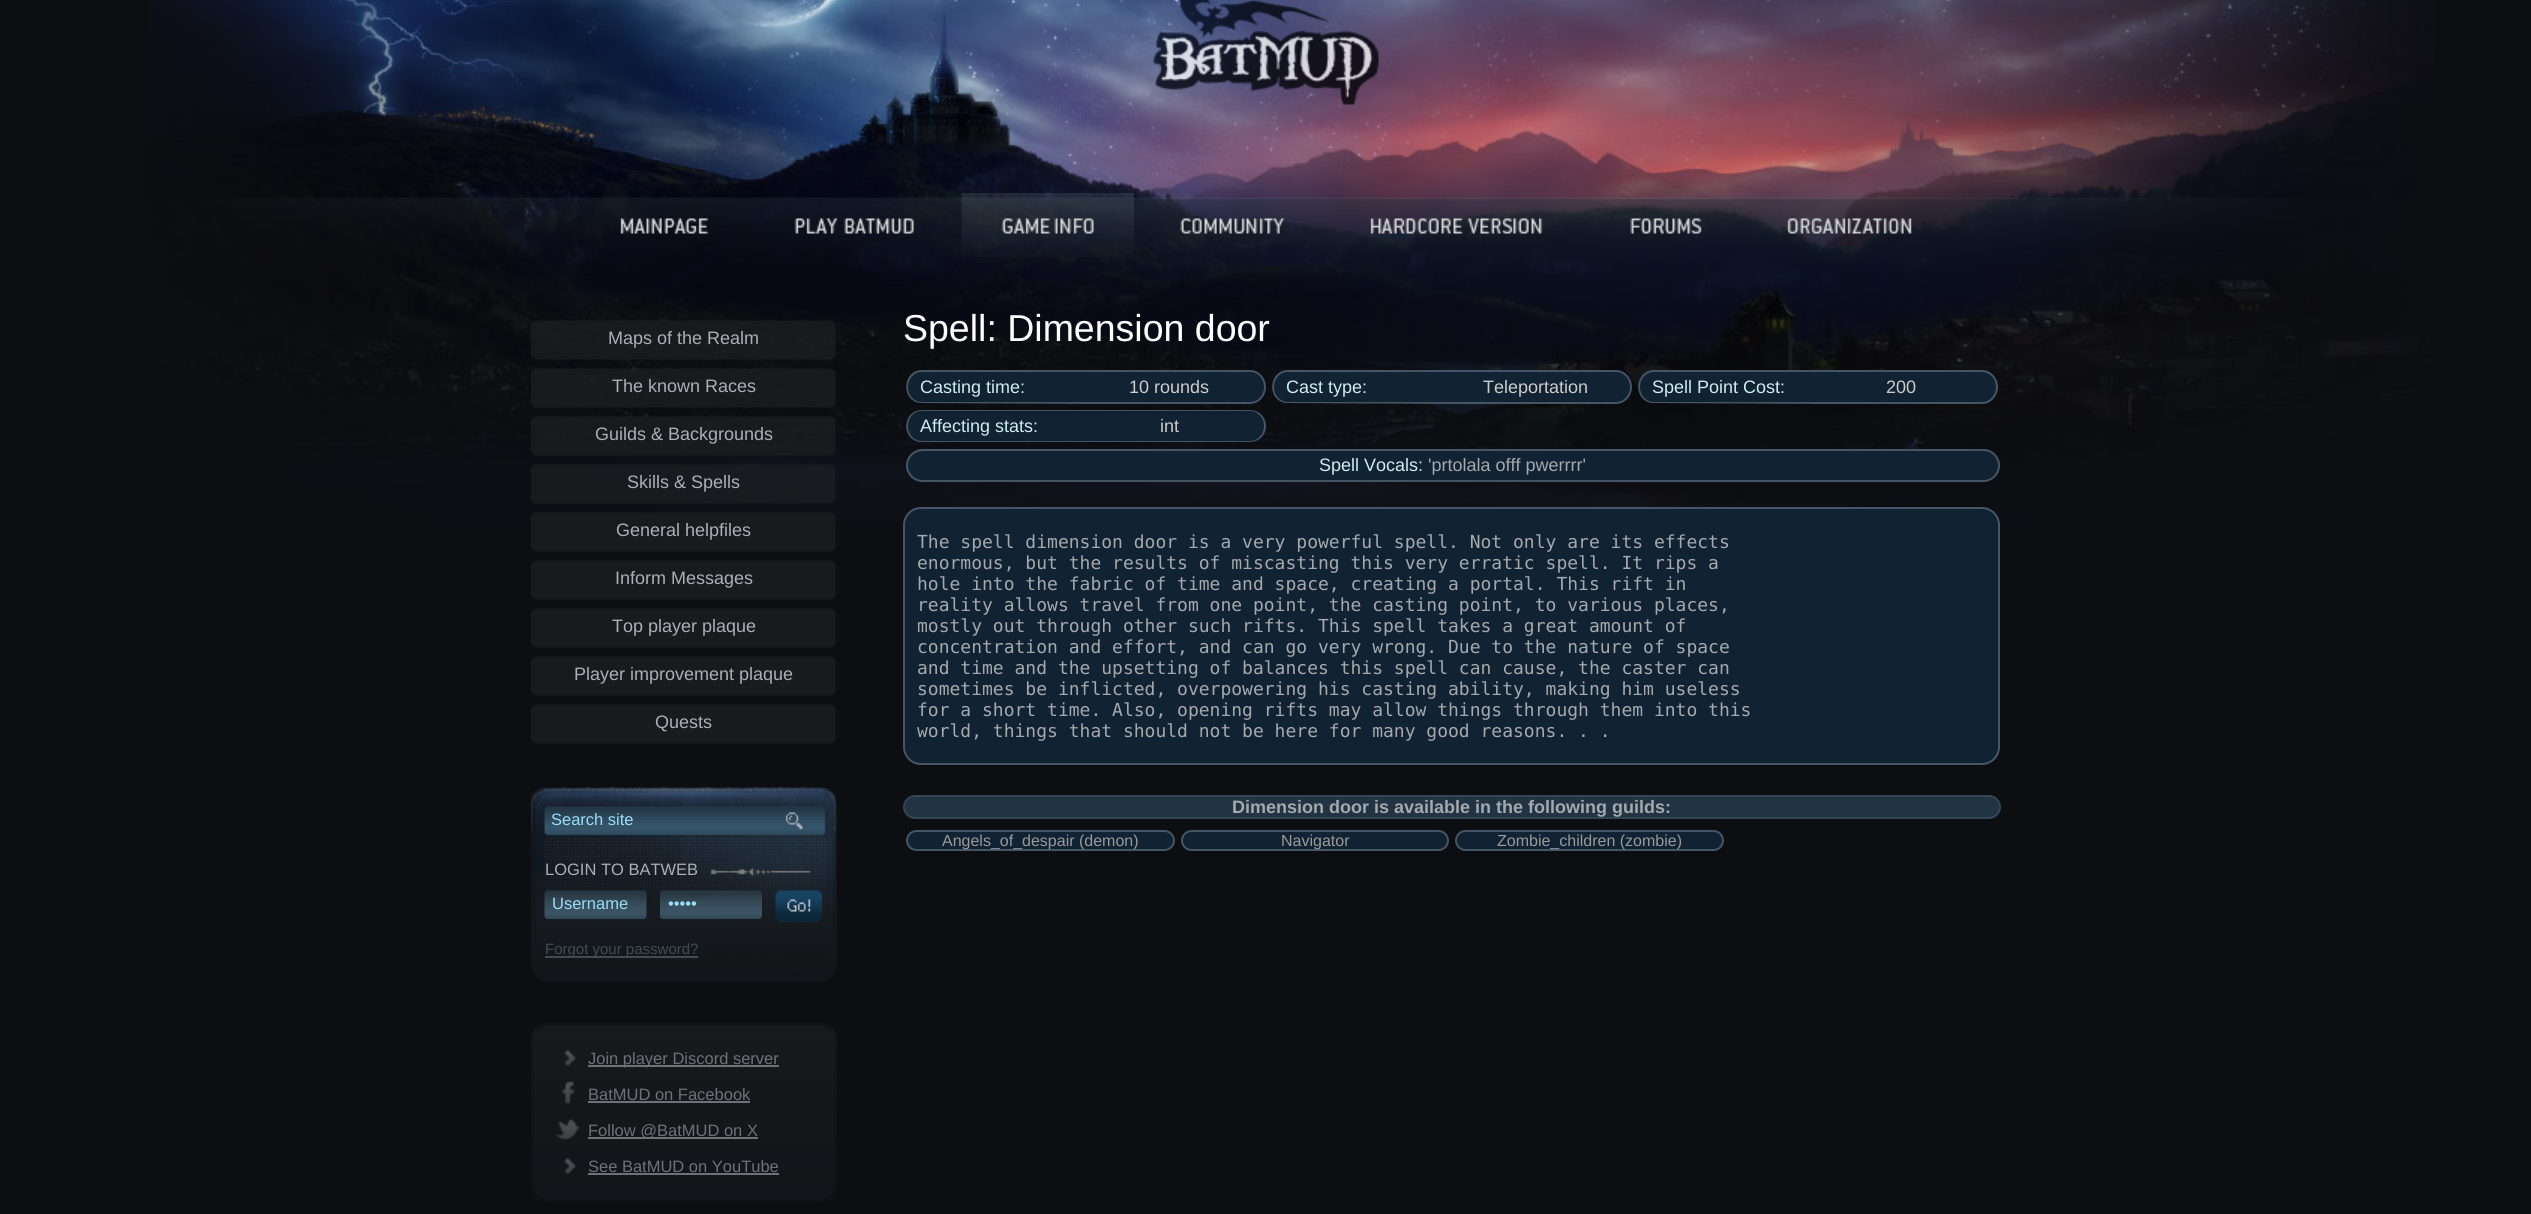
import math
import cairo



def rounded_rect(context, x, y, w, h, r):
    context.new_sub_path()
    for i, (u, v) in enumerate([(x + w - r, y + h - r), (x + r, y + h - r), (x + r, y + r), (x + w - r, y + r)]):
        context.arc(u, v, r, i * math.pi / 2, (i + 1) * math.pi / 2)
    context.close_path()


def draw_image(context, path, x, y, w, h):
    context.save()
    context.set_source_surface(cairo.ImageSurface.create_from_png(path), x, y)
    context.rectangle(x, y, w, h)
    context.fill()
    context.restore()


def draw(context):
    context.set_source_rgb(13 / 255, 14 / 255, 18 / 255)
    context.paint()
    draw_image(context, "images/1.png", 149, 0, 2286, 525)
    draw_image(context, "images/2.png", 1153, 0, 226, 105)
    draw_image(context, "images/3.png", 620, 218, 89, 16)
    draw_image(context, "images/4.png", 794, 218, 120, 16)
    draw_image(context, "images/5.png", 961, 193, 173, 64)
    draw_image(context, "images/6.png", 1180, 218, 105, 16)
    draw_image(context, "images/7.png", 1370, 218, 173, 17)
    draw_image(context, "images/8.png", 1630, 218, 72, 16)
    draw_image(context, "images/9.png", 1787, 218, 125, 18)
    draw_image(context, "images/10.png", 531, 320, 305, 40)
    draw_image(context, "images/11.png", 531, 368, 305, 40)
    draw_image(context, "images/12.png", 531, 416, 305, 40)
    draw_image(context, "images/13.png", 531, 464, 305, 40)
    draw_image(context, "images/14.png", 531, 512, 305, 40)
    draw_image(context, "images/15.png", 531, 560, 305, 40)
    draw_image(context, "images/15.png", 531, 608, 305, 40)
    draw_image(context, "images/15.png", 531, 656, 305, 40)
    draw_image(context, "images/15.png", 531, 704, 305, 40)
    draw_image(context, "images/16.png", 531, 786, 306, 196)
    draw_image(context, "images/17.png", 785, 812, 18, 18)
    draw_image(context, "images/18.png", 544, 890, 103, 29)
    draw_image(context, "images/19.png", 660, 890, 102, 29)
    draw_image(context, "images/20.png", 775, 890, 47, 32)
    context.set_source_rgb(65 / 255, 74 / 255, 83 / 255)
    context.rectangle(545, 956, 153, 2)
    context.fill()
    gradient = cairo.LinearGradient(684, 1023, 684, 1203)
    gradient.add_color_stop_rgba(0, 20 / 255, 21 / 255, 24 / 255, 1)
    gradient.add_color_stop_rgba(1, 15 / 255, 17 / 255, 20 / 255, 1)
    context.set_source(gradient)
    rounded_rect(context, 531, 1023, 306, 180, 15)
    context.fill()
    gradient = cairo.LinearGradient(684, 1026, 684, 1200)
    gradient.add_color_stop_rgba(0, 23 / 255, 25 / 255, 28 / 255, 1)
    gradient.add_color_stop_rgba(1, 18 / 255, 20 / 255, 25 / 255, 1)
    context.set_source(gradient)
    rounded_rect(context, 534, 1026, 300, 174, 14)
    context.fill()
    draw_image(context, "images/21.png", 564, 1049, 13, 18)
    context.set_source_rgb(109 / 255, 114 / 255, 120 / 255)
    context.rectangle(588, 1065, 191, 2)
    context.fill()
    draw_image(context, "images/22.png", 562, 1081, 13, 23)
    context.rectangle(588, 1101, 162, 2)
    context.fill()
    draw_image(context, "images/23.png", 555, 1118, 25, 22)
    context.rectangle(588, 1137, 170, 2)
    context.fill()
    draw_image(context, "images/24.png", 564, 1157, 13, 18)
    context.rectangle(588, 1173, 191, 2)
    context.fill()
    context.set_source_rgb(17 / 255, 34 / 255, 51 / 255)
    context.new_path()
    context.move_to(923, 372)
    context.line_to(1086, 372)
    context.line_to(1086, 402)
    context.line_to(923, 402)
    context.curve_to(914.5, 402, 908, 395.5, 908, 387)
    context.curve_to(908, 378.5, 914.5, 372, 923, 372)
    context.close_path()
    context.fill()
    context.set_source_rgb(68 / 255, 85 / 255, 102 / 255)
    context.set_fill_rule(cairo.FillRule.EVEN_ODD)
    context.new_path()
    context.move_to(922, 370)
    context.line_to(1086, 370)
    context.line_to(1086, 404)
    context.line_to(919, 403)
    context.curve_to(900, 399, 903, 370, 922, 370)
    context.close_path()
    context.move_to(922, 372)
    context.line_to(1086, 372)
    context.line_to(1086, 402)
    context.line_to(922, 402)
    context.curve_to(914, 402, 908, 395, 908, 387)
    context.curve_to(908, 379, 914, 372, 922, 372)
    context.close_path()
    context.fill()
    context.set_source_rgb(17 / 255, 34 / 255, 51 / 255)
    context.new_path()
    context.move_to(1086, 372)
    context.line_to(1250, 372)
    context.curve_to(1258.5, 372, 1265, 378.5, 1265, 387)
    context.curve_to(1265, 395.5, 1258.5, 402, 1250, 402)
    context.line_to(1086, 402)
    context.close_path()
    context.fill()
    context.set_source_rgb(68 / 255, 85 / 255, 102 / 255)
    context.new_path()
    context.move_to(1086, 370)
    context.line_to(1250, 370)
    context.curve_to(1259, 370, 1266, 378, 1266, 387)
    context.curve_to(1266, 396, 1259, 404, 1250, 404)
    context.line_to(1086, 404)
    context.close_path()
    context.move_to(1086, 372)
    context.line_to(1250, 372)
    context.curve_to(1258, 372, 1264, 379, 1264, 387)
    context.curve_to(1264, 395, 1258, 402, 1250, 402)
    context.line_to(1086, 402)
    context.close_path()
    context.fill()
    context.set_source_rgb(17 / 255, 34 / 255, 51 / 255)
    context.new_path()
    context.move_to(1289, 372)
    context.line_to(1452, 372)
    context.line_to(1452, 402)
    context.line_to(1289, 402)
    context.curve_to(1280.5, 402, 1274, 395.5, 1274, 387)
    context.curve_to(1274, 378.5, 1280.5, 372, 1289, 372)
    context.close_path()
    context.fill()
    context.set_source_rgb(68 / 255, 85 / 255, 102 / 255)
    context.new_path()
    context.move_to(1288, 370)
    context.line_to(1452, 370)
    context.line_to(1452, 404)
    context.line_to(1285, 403)
    context.curve_to(1266, 399, 1269, 370, 1288, 370)
    context.close_path()
    context.move_to(1288, 372)
    context.line_to(1452, 372)
    context.line_to(1452, 402)
    context.line_to(1288, 402)
    context.curve_to(1280, 402, 1274, 395, 1274, 387)
    context.curve_to(1274, 379, 1280, 372, 1288, 372)
    context.close_path()
    context.fill()
    context.set_source_rgb(17 / 255, 34 / 255, 51 / 255)
    context.new_path()
    context.move_to(1452, 372)
    context.line_to(1616, 372)
    context.curve_to(1624.5, 372, 1631, 378.5, 1631, 387)
    context.curve_to(1631, 395.5, 1624.5, 402, 1616, 402)
    context.line_to(1452, 402)
    context.close_path()
    context.fill()
    context.set_source_rgb(68 / 255, 85 / 255, 102 / 255)
    context.new_path()
    context.move_to(1452, 370)
    context.line_to(1616, 370)
    context.curve_to(1625, 370, 1632, 378, 1632, 387)
    context.curve_to(1632, 396, 1625, 404, 1616, 404)
    context.line_to(1452, 404)
    context.close_path()
    context.move_to(1452, 372)
    context.line_to(1616, 372)
    context.curve_to(1624, 372, 1630, 379, 1630, 387)
    context.curve_to(1630, 395, 1624, 402, 1616, 402)
    context.line_to(1452, 402)
    context.close_path()
    context.fill()
    context.set_source_rgb(17 / 255, 34 / 255, 51 / 255)
    context.new_path()
    context.move_to(1655, 372)
    context.line_to(1818, 372)
    context.line_to(1818, 402)
    context.line_to(1655, 402)
    context.curve_to(1646.5, 402, 1640, 395.5, 1640, 387)
    context.curve_to(1640, 378.5, 1646.5, 372, 1655, 372)
    context.close_path()
    context.fill()
    context.set_source_rgb(68 / 255, 85 / 255, 102 / 255)
    context.new_path()
    context.move_to(1654, 370)
    context.line_to(1818, 370)
    context.line_to(1818, 404)
    context.line_to(1651, 403)
    context.curve_to(1632, 399, 1635, 370, 1654, 370)
    context.close_path()
    context.move_to(1654, 372)
    context.line_to(1818, 372)
    context.line_to(1818, 402)
    context.line_to(1654, 402)
    context.curve_to(1646, 402, 1640, 395, 1640, 387)
    context.curve_to(1640, 379, 1646, 372, 1654, 372)
    context.close_path()
    context.fill()
    context.set_source_rgb(17 / 255, 34 / 255, 51 / 255)
    context.new_path()
    context.move_to(1818, 372)
    context.line_to(1982, 372)
    context.curve_to(1990.5, 372, 1997, 378.5, 1997, 387)
    context.curve_to(1997, 395.5, 1990.5, 402, 1982, 402)
    context.line_to(1818, 402)
    context.close_path()
    context.fill()
    context.set_source_rgb(68 / 255, 85 / 255, 102 / 255)
    context.new_path()
    context.move_to(1818, 370)
    context.line_to(1982, 370)
    context.curve_to(1991, 370, 1998, 378, 1998, 387)
    context.curve_to(1998, 396, 1991, 404, 1982, 404)
    context.line_to(1818, 404)
    context.close_path()
    context.move_to(1818, 372)
    context.line_to(1982, 372)
    context.curve_to(1990, 372, 1996, 379, 1996, 387)
    context.curve_to(1996, 395, 1990, 402, 1982, 402)
    context.line_to(1818, 402)
    context.close_path()
    context.fill()
    context.set_source_rgb(17 / 255, 34 / 255, 51 / 255)
    context.new_path()
    context.move_to(923, 411)
    context.line_to(1086, 411)
    context.line_to(1086, 441)
    context.line_to(923, 441)
    context.curve_to(914.5, 441, 908, 434.5, 908, 426)
    context.curve_to(908, 417.5, 914.5, 411, 923, 411)
    context.close_path()
    context.fill()
    context.set_source_rgb(68 / 255, 85 / 255, 102 / 255)
    context.new_path()
    context.move_to(922, 410)
    context.line_to(1086, 410)
    context.line_to(1086, 442)
    context.line_to(919, 442)
    context.curve_to(900, 438, 903, 410, 922, 410)
    context.close_path()
    context.move_to(922, 411)
    context.line_to(1086, 411)
    context.line_to(1086, 441)
    context.line_to(922, 441)
    context.curve_to(914, 441, 908, 434, 908, 426)
    context.curve_to(908, 418, 914, 411, 922, 411)
    context.close_path()
    context.fill()
    context.set_source_rgb(17 / 255, 34 / 255, 51 / 255)
    context.new_path()
    context.move_to(1086, 411)
    context.line_to(1250, 411)
    context.curve_to(1258.5, 411, 1265, 417.5, 1265, 426)
    context.curve_to(1265, 434.5, 1258.5, 441, 1250, 441)
    context.line_to(1086, 441)
    context.close_path()
    context.fill()
    context.set_source_rgb(68 / 255, 85 / 255, 102 / 255)
    context.new_path()
    context.move_to(1086, 410)
    context.line_to(1250, 410)
    context.curve_to(1259, 410, 1266, 417, 1266, 426)
    context.curve_to(1266, 435, 1259, 442, 1250, 442)
    context.line_to(1086, 442)
    context.close_path()
    context.move_to(1086, 411)
    context.line_to(1250, 411)
    context.curve_to(1258, 411, 1264, 418, 1264, 426)
    context.curve_to(1264, 434, 1258, 441, 1250, 441)
    context.line_to(1086, 441)
    context.close_path()
    context.fill()
    context.set_source_rgb(17 / 255, 34 / 255, 51 / 255)
    rounded_rect(context, 907, 450, 1092, 31, 15.5)
    context.fill_preserve()
    context.set_source_rgb(68 / 255, 85 / 255, 102 / 255)
    context.stroke()
    context.set_source_rgb(17 / 255, 34 / 255, 51 / 255)
    rounded_rect(context, 904, 508, 1095, 256, 17)
    context.fill_preserve()
    context.set_source_rgb(68 / 255, 85 / 255, 102 / 255)
    context.stroke()
    context.set_source_rgb(34 / 255, 51 / 255, 68 / 255)
    rounded_rect(context, 904, 796, 1096, 22, 11)
    context.fill_preserve()
    context.set_source_rgb(51 / 255, 68 / 255, 85 / 255)
    context.stroke()
    context.set_source_rgb(17 / 255, 34 / 255, 51 / 255)
    rounded_rect(context, 907, 831, 267, 19, 9.5)
    context.fill_preserve()
    context.set_source_rgb(68 / 255, 85 / 255, 102 / 255)
    context.stroke()
    context.set_source_rgb(17 / 255, 34 / 255, 51 / 255)
    rounded_rect(context, 1182, 831, 266, 19, 9.5)
    context.fill_preserve()
    context.set_source_rgb(68 / 255, 85 / 255, 102 / 255)
    context.stroke()
    context.set_source_rgb(17 / 255, 34 / 255, 51 / 255)
    rounded_rect(context, 1456, 831, 267, 19, 9.5)
    context.fill_preserve()
    context.set_source_rgb(68 / 255, 85 / 255, 102 / 255)
    context.stroke()
    context.select_font_face("Liberation Sans")
    context.set_font_size(18)
    context.set_source_rgb(170 / 255, 176 / 255, 182 / 255)
    context.move_to(608, 344)
    context.show_text("Maps of the Realm")
    context.move_to(612, 392)
    context.show_text("The known Races")
    context.move_to(595, 440)
    context.show_text("Guilds & Backgrounds")
    context.move_to(627, 488)
    context.show_text("Skills & Spells")
    context.move_to(616, 536)
    context.show_text("General helpfiles")
    context.move_to(615, 584)
    context.show_text("Inform Messages")
    context.move_to(612, 632)
    context.show_text("Top player plaque")
    context.move_to(574, 680)
    context.show_text("Player improvement plaque")
    context.move_to(655, 728)
    context.show_text("Quests")
    context.set_font_size(16.5)
    context.set_source_rgb(154 / 255, 221 / 255, 247 / 255)
    context.move_to(551, 825)
    context.show_text("Search site")
    context.set_source_rgb(170 / 255, 176 / 255, 182 / 255)
    context.move_to(545, 875)
    context.show_text("LOGIN TO BATWEB")
    context.set_source_rgb(154 / 255, 221 / 255, 247 / 255)
    context.move_to(552, 909)
    context.show_text("Username")
    context.move_to(668, 909)
    context.show_text("•••••")
    context.set_font_size(15)
    context.set_source_rgb(65 / 255, 74 / 255, 83 / 255)
    context.move_to(545, 954)
    context.show_text("Forgot your password?")
    context.set_font_size(16.5)
    context.set_source_rgb(109 / 255, 114 / 255, 120 / 255)
    context.move_to(588, 1064)
    context.show_text("Join player Discord server")
    context.move_to(588, 1100)
    context.show_text("BatMUD on Facebook")
    context.move_to(588, 1136)
    context.show_text("Follow @BatMUD on X")
    context.move_to(588, 1172)
    context.show_text("See BatMUD on YouTube")
    context.set_font_size(37.5)
    context.set_source_rgb(1, 1, 1)
    context.move_to(903, 341)
    context.show_text("Spell: Dimension door")
    context.set_font_size(18)
    context.set_source_rgb(204 / 255, 238 / 255, 238 / 255)
    context.move_to(920, 393)
    context.show_text("Casting time:")
    context.set_source_rgb(204 / 255, 204 / 255, 204 / 255)
    context.move_to(1129, 393)
    context.show_text("10 rounds")
    context.set_source_rgb(204 / 255, 238 / 255, 238 / 255)
    context.move_to(1286, 393)
    context.show_text("Cast type:")
    context.set_source_rgb(204 / 255, 204 / 255, 204 / 255)
    context.move_to(1483, 393)
    context.show_text("Teleportation")
    context.set_source_rgb(204 / 255, 238 / 255, 238 / 255)
    context.move_to(1652, 393)
    context.show_text("Spell Point Cost:")
    context.set_source_rgb(204 / 255, 204 / 255, 204 / 255)
    context.move_to(1886, 393)
    context.show_text("200")
    context.set_source_rgb(204 / 255, 238 / 255, 238 / 255)
    context.move_to(920, 432)
    context.show_text("Affecting stats:")
    context.set_source_rgb(204 / 255, 204 / 255, 204 / 255)
    context.move_to(1160, 432)
    context.show_text("int")
    context.set_source_rgb(204 / 255, 238 / 255, 238 / 255)
    context.move_to(1319, 471)
    context.show_text("Spell Vocals:")
    context.set_source_rgb(165 / 255, 168 / 255, 172 / 255)
    context.move_to(1428, 471)
    context.show_text("'prtolala offf pwerrrr'")
    context.select_font_face("DejaVu Sans Mono")
    context.move_to(917, 548)
    context.show_text("The spell dimension door is a very powerful spell. Not only are its effects")
    context.move_to(917, 569)
    context.show_text("enormous, but the results of miscasting this very erratic spell. It rips a")
    context.move_to(917, 590)
    context.show_text("hole into the fabric of time and space, creating a portal. This rift in")
    context.move_to(917, 611)
    context.show_text("reality allows travel from one point, the casting point, to various places,")
    context.move_to(917, 632)
    context.show_text("mostly out through other such rifts. This spell takes a great amount of")
    context.move_to(917, 653)
    context.show_text("concentration and effort, and can go very wrong. Due to the nature of space")
    context.move_to(917, 674)
    context.show_text("and time and the upsetting of balances this spell can cause, the caster can")
    context.move_to(917, 695)
    context.show_text("sometimes be inflicted, overpowering his casting ability, making him useless")
    context.move_to(917, 716)
    context.show_text("for a short time. Also, opening rifts may allow things through them into this")
    context.move_to(917, 737)
    context.show_text("world, things that should not be here for many good reasons. . .")
    context.select_font_face("Liberation Sans", cairo.FontSlant.NORMAL, cairo.FontWeight.BOLD)
    context.move_to(1232, 813)
    context.show_text("Dimension door is available in the following guilds:")
    context.select_font_face("Liberation Sans")
    context.set_font_size(16)
    context.set_source_rgb(153 / 255, 153 / 255, 153 / 255)
    context.move_to(942, 846)
    context.show_text("Angels_of_despair (demon)")
    context.move_to(1281, 846)
    context.show_text("Navigator")
    context.move_to(1497, 846)
    context.show_text("Zombie_children (zombie)")


surface = cairo.ImageSurface(cairo.Format.RGB24, 2531, 1214)
context = cairo.Context(surface)
options = cairo.FontOptions()
options.set_hint_metrics(cairo.HintMetrics.OFF)
options.set_hint_style(cairo.HintStyle.NONE)
context.set_font_options(options)
context.set_miter_limit(4)
draw(context)
surface.write_to_png("out.png")
